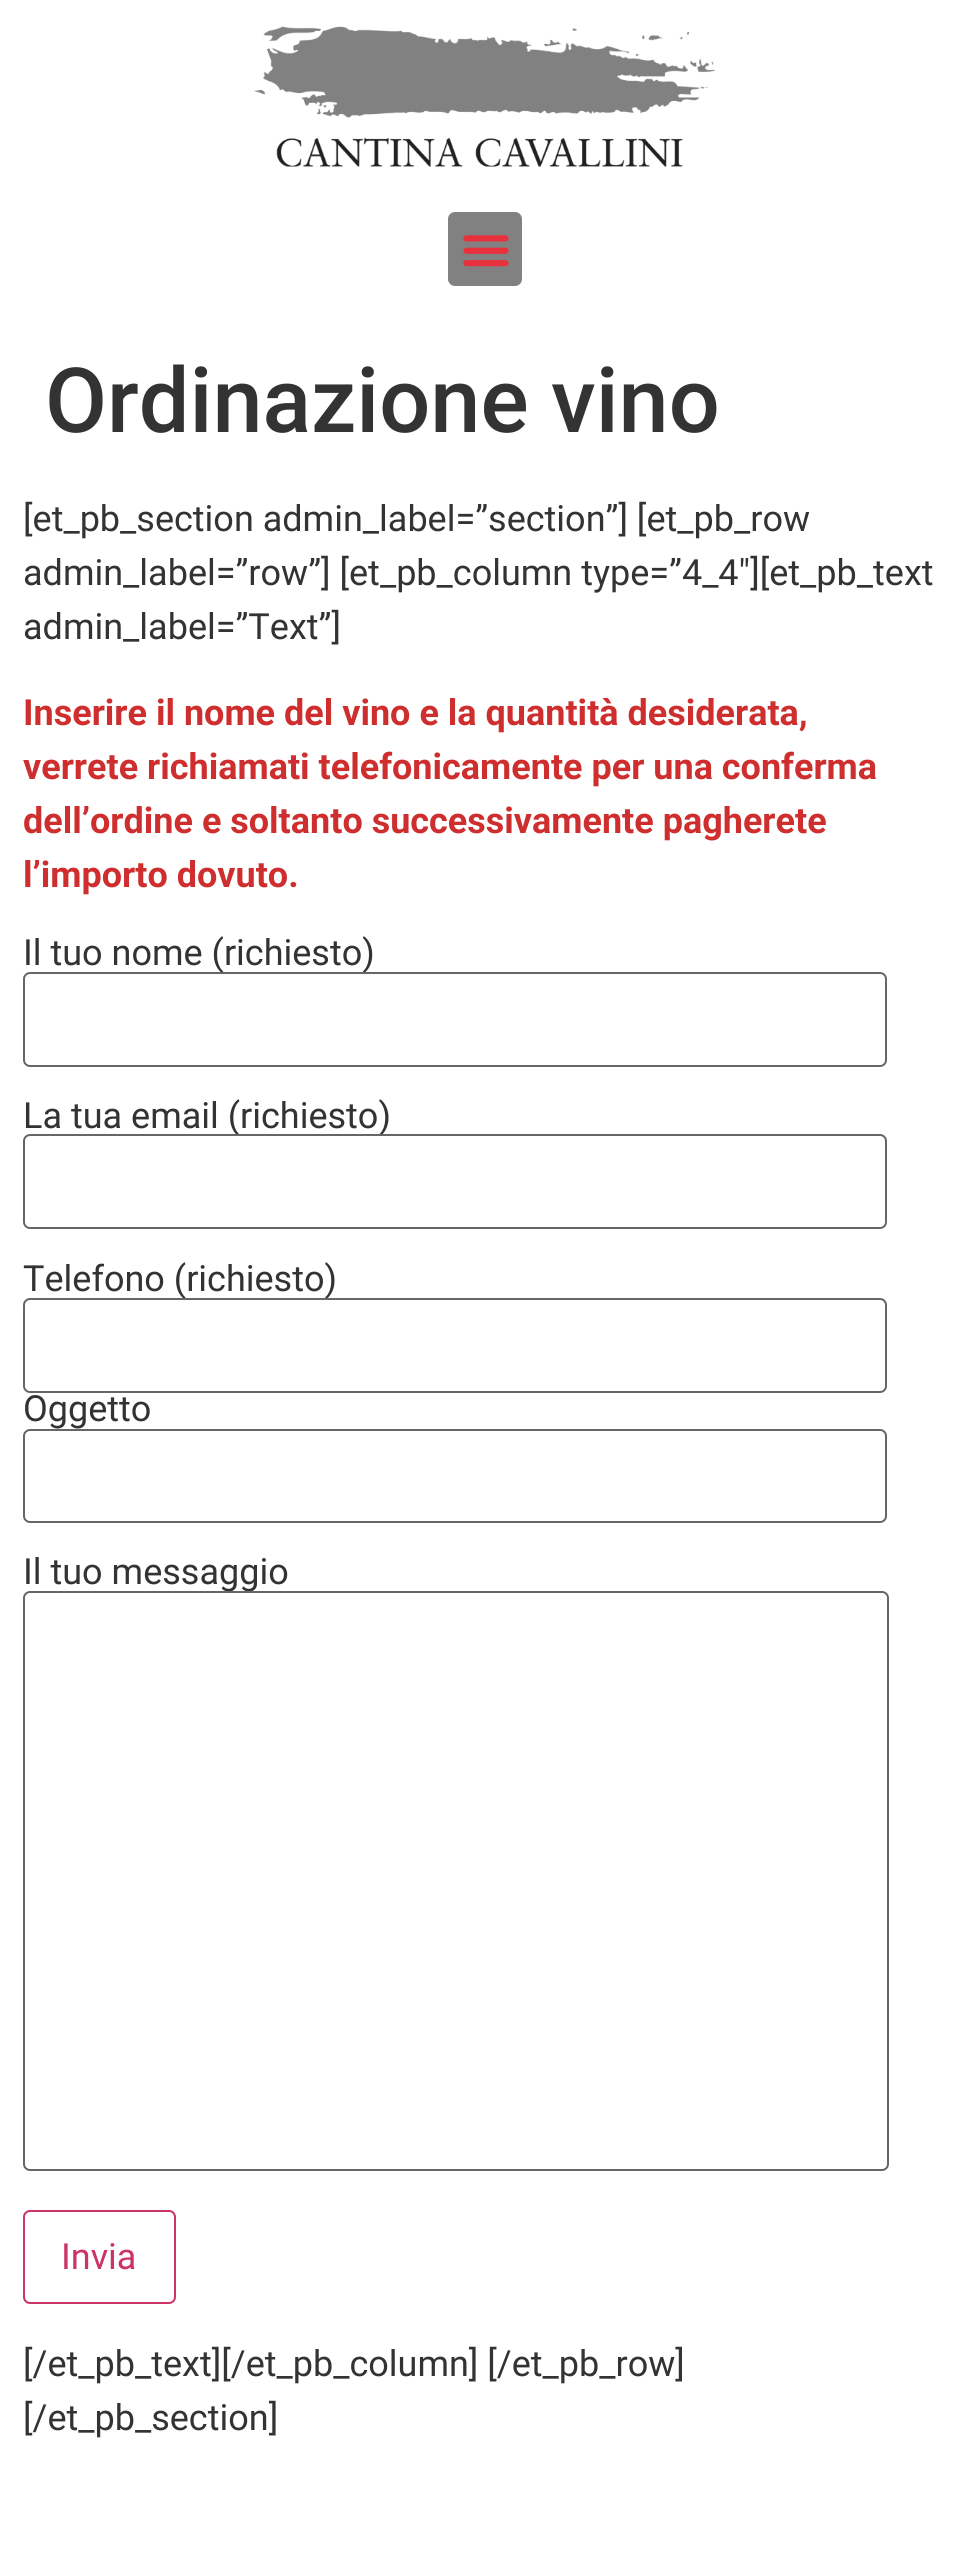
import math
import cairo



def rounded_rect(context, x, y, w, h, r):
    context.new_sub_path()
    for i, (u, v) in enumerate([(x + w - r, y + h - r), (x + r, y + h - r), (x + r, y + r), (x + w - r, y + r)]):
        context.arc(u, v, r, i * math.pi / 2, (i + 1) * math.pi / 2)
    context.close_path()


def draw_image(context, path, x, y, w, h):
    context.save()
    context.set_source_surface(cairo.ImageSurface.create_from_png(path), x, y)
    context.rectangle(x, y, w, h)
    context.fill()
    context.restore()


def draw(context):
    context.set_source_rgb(1, 1, 1)
    context.paint()
    draw_image(context, "images/1.png", 254, 26, 462, 141)
    context.set_source_rgb(129 / 255, 129 / 255, 129 / 255)
    rounded_rect(context, 448, 212, 74, 74, 7)
    context.fill()
    draw_image(context, "images/2.png", 463, 235, 46, 32)
    rounded_rect(context, 24, 1430, 862, 92, 6)
    context.set_source_rgb(102 / 255, 102 / 255, 102 / 255)
    context.stroke()
    rounded_rect(context, 24, 2211, 151, 92, 6)
    context.set_source_rgb(204 / 255, 51 / 255, 102 / 255)
    context.stroke()
    context.select_font_face("Roboto Medium")
    context.set_font_size(90)
    context.set_source_rgb(51 / 255, 51 / 255, 51 / 255)
    context.move_to(45, 432)
    context.show_text("Ordinazione vino")
    context.select_font_face("Roboto")
    context.set_font_size(36)
    context.move_to(23, 531)
    context.show_text("[et_pb_section admin_label=”section”] [et_pb_row")
    context.move_to(23, 585)
    context.show_text("admin_label=”row”] [et_pb_column type=”4_4″][et_pb_text")
    context.move_to(23, 639)
    context.show_text("admin_label=”Text”]")
    context.select_font_face("Roboto", cairo.FontSlant.NORMAL, cairo.FontWeight.BOLD)
    context.set_source_rgb(207 / 255, 46 / 255, 46 / 255)
    context.move_to(23, 725)
    context.show_text("Inserire il nome del vino e la quantità desiderata,")
    context.move_to(23, 779)
    context.show_text("verrete richiamati telefonicamente per una conferma")
    context.move_to(23, 833)
    context.show_text("dell’ordine e soltanto successivamente pagherete")
    context.move_to(23, 887)
    context.show_text("l’importo dovuto.")
    context.select_font_face("Roboto")
    context.set_source_rgb(51 / 255, 51 / 255, 51 / 255)
    context.move_to(23, 965)
    context.show_text("Il tuo nome (richiesto)")
    context.set_source_rgb(1, 1, 1)
    rounded_rect(context, 24, 973, 862, 93, 6)
    context.fill_preserve()
    context.set_source_rgb(102 / 255, 102 / 255, 102 / 255)
    context.stroke()
    context.set_source_rgb(51 / 255, 51 / 255, 51 / 255)
    context.move_to(23, 1128)
    context.show_text("La tua email (richiesto)")
    context.set_source_rgb(1, 1, 1)
    rounded_rect(context, 24, 1135, 862, 93, 6)
    context.fill_preserve()
    context.set_source_rgb(102 / 255, 102 / 255, 102 / 255)
    context.stroke()
    context.set_source_rgb(51 / 255, 51 / 255, 51 / 255)
    context.move_to(23, 1291)
    context.show_text("Telefono (richiesto)")
    context.set_source_rgb(1, 1, 1)
    rounded_rect(context, 24, 1299, 862, 93, 6)
    context.fill_preserve()
    context.set_source_rgb(102 / 255, 102 / 255, 102 / 255)
    context.stroke()
    context.set_source_rgb(51 / 255, 51 / 255, 51 / 255)
    context.move_to(23, 1421)
    context.show_text("Oggetto")
    context.move_to(23, 1584)
    context.show_text("Il tuo messaggio")
    context.set_source_rgb(1, 1, 1)
    rounded_rect(context, 24, 1592, 864, 578, 6)
    context.fill_preserve()
    context.set_source_rgb(102 / 255, 102 / 255, 102 / 255)
    context.stroke()
    context.set_source_rgb(204 / 255, 51 / 255, 102 / 255)
    context.move_to(61, 2269)
    context.show_text("Invia")
    context.set_source_rgb(51 / 255, 51 / 255, 51 / 255)
    context.move_to(23, 2376)
    context.show_text("[/et_pb_text][/et_pb_column] [/et_pb_row]")
    context.move_to(23, 2430)
    context.show_text("[/et_pb_section]")


surface = cairo.ImageSurface(cairo.Format.RGB24, 968, 2575)
context = cairo.Context(surface)
options = cairo.FontOptions()
options.set_hint_metrics(cairo.HintMetrics.OFF)
options.set_hint_style(cairo.HintStyle.NONE)
context.set_font_options(options)
context.set_miter_limit(4)
draw(context)
surface.write_to_png("out.png")
